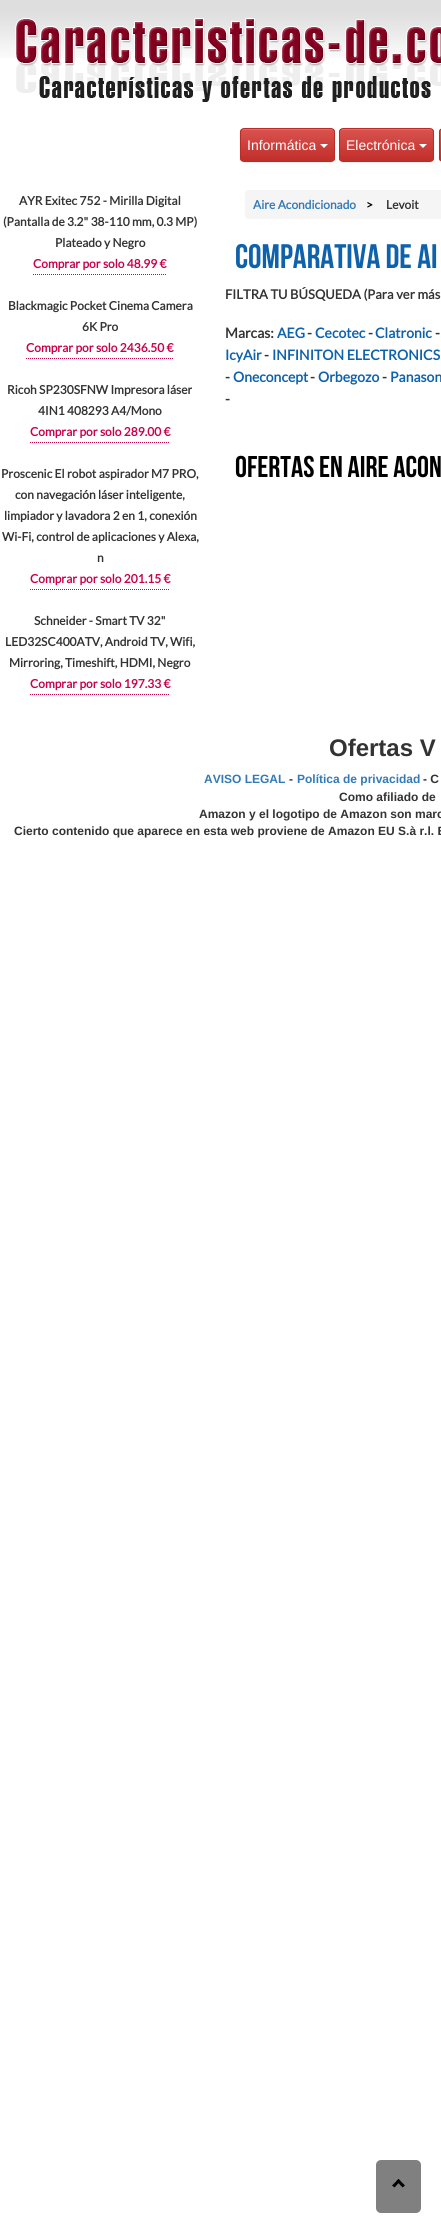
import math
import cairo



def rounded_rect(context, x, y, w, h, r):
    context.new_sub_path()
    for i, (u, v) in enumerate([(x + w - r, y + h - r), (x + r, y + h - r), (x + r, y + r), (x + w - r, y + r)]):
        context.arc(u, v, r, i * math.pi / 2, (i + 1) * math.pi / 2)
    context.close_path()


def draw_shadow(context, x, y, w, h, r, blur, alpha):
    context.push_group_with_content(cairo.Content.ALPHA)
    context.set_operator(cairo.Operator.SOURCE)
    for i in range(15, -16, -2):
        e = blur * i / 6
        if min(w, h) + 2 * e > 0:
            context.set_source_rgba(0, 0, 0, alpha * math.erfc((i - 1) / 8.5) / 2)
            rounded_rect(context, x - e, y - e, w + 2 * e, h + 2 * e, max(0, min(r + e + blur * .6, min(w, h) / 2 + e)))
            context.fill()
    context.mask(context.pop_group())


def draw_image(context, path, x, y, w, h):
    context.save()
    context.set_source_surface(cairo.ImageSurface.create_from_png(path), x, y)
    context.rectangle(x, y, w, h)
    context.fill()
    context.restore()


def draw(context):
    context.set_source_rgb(1, 1, 1)
    context.paint()
    draw_image(context, "images/1.png", 0, 0, 441, 58)
    draw_image(context, "images/2.png", 15, 18, 426, 84)
    context.set_source_rgb(0, 0, 0)
    draw_shadow(context, 240, 129, 95, 34, 4, 0.5, 0.07)
    context.save()
    rounded_rect(context, 240, 128, 95, 34, 4)
    context.clip()
    gradient = cairo.LinearGradient(288, 129, 288, 161)
    gradient.add_color_stop_rgba(0, 217 / 255, 83 / 255, 79 / 255, 1)
    gradient.add_color_stop_rgba(1, 193 / 255, 46 / 255, 42 / 255, 1)
    context.set_source(gradient)
    context.rectangle(240, 129, 95, 32)
    context.fill()
    context.restore()
    context.set_source_rgb(223 / 255, 108 / 255, 105 / 255)
    context.new_path()
    context.move_to(244, 130)
    context.line_to(331, 130)
    context.curve_to(333, 130, 334, 131, 334, 133)
    context.curve_to(334, 125, 320, 129, 316, 129)
    context.line_to(258, 129)
    context.curve_to(255, 129, 241, 125, 241, 133)
    context.curve_to(241, 131, 242, 130, 244, 130)
    context.close_path()
    context.fill()
    rounded_rect(context, 240.5, 128.5, 94, 33, 3.5)
    context.set_source_rgb(185 / 255, 44 / 255, 40 / 255)
    context.set_line_width(1)
    context.stroke()
    context.set_source_rgb(1, 1, 1)
    context.new_path()
    context.move_to(320, 144)
    context.line_to(328, 144)
    context.line_to(324, 148)
    context.close_path()
    context.fill()
    context.set_source_rgb(0, 0, 0)
    draw_shadow(context, 339, 129, 95, 34, 4, 0.5, 0.07)
    context.save()
    rounded_rect(context, 339, 128, 95, 34, 4)
    context.clip()
    gradient = cairo.LinearGradient(387, 129, 387, 161)
    gradient.add_color_stop_rgba(0, 217 / 255, 83 / 255, 79 / 255, 1)
    gradient.add_color_stop_rgba(1, 193 / 255, 46 / 255, 42 / 255, 1)
    context.set_source(gradient)
    context.rectangle(339, 129, 95, 32)
    context.fill()
    context.restore()
    context.set_source_rgb(223 / 255, 108 / 255, 105 / 255)
    context.new_path()
    context.move_to(343, 130)
    context.line_to(430, 130)
    context.curve_to(432, 130, 433, 131, 433, 133)
    context.curve_to(433, 125, 419, 129, 416, 129)
    context.line_to(358, 129)
    context.curve_to(354, 129, 340, 125, 340, 133)
    context.curve_to(340, 131, 341, 130, 343, 130)
    context.close_path()
    context.fill()
    rounded_rect(context, 339.5, 128.5, 94, 33, 3.5)
    context.set_source_rgb(185 / 255, 44 / 255, 40 / 255)
    context.stroke()
    context.set_source_rgb(1, 1, 1)
    context.new_path()
    context.move_to(419, 144)
    context.line_to(427, 144)
    context.line_to(423, 148)
    context.close_path()
    context.fill()
    context.set_source_rgb(0, 0, 0)
    draw_shadow(context, 439, 129, 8, 34, 4, 0.5, 0.07)
    context.save()
    rounded_rect(context, 439, 128, 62, 34, 4)
    context.clip()
    gradient = cairo.LinearGradient(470, 129, 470, 161)
    gradient.add_color_stop_rgba(0, 217 / 255, 83 / 255, 79 / 255, 1)
    gradient.add_color_stop_rgba(1, 193 / 255, 46 / 255, 42 / 255, 1)
    context.set_source(gradient)
    context.rectangle(439, 129, 2, 32)
    context.fill()
    context.restore()
    context.set_source_rgb(221 / 255, 107 / 255, 103 / 255)
    context.new_path()
    context.move_to(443, 130)
    context.line_to(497, 130)
    context.curve_to(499, 130, 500, 131, 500, 133)
    context.curve_to(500, 127, 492, 129, 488, 129)
    context.line_to(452, 129)
    context.curve_to(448, 129, 440, 127, 440, 133)
    context.curve_to(440, 131, 441, 130, 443, 130)
    context.close_path()
    context.fill()
    rounded_rect(context, 439.5, 128.5, 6, 33, 3.5)
    context.set_source_rgb(185 / 255, 44 / 255, 40 / 255)
    context.stroke()
    context.new_path()
    context.move_to(33, 274.5)
    context.line_to(167, 274.5)
    context.set_source_rgb(202 / 255, 0, 76 / 255)
    context.set_dash([1, 1])
    context.stroke()
    context.new_path()
    context.move_to(26, 358.5)
    context.line_to(174, 358.5)
    context.stroke()
    context.new_path()
    context.move_to(30, 442.5)
    context.line_to(170, 442.5)
    context.stroke()
    context.new_path()
    context.move_to(30, 589.5)
    context.line_to(170, 589.5)
    context.stroke()
    context.new_path()
    context.move_to(30, 694.5)
    context.line_to(170, 694.5)
    context.stroke()
    context.set_source_rgb(245 / 255, 245 / 255, 245 / 255)
    rounded_rect(context, 245, 190, 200, 29, 4)
    context.fill()
    context.set_source_rgb(128 / 255, 128 / 255, 128 / 255)
    rounded_rect(context, 376, 2160, 45, 53, 5)
    context.fill()
    context.set_source_rgb(0, 0, 0)
    context.new_path()
    context.move_to(394.5, 2187.5)
    context.line_to(392, 2185.5)
    context.line_to(398.5, 2179)
    context.line_to(400.5, 2181)
    context.close_path()
    context.fill()
    context.new_path()
    context.move_to(402.5, 2187.5)
    context.line_to(396.5, 2181)
    context.line_to(398.5, 2179)
    context.line_to(405, 2185.5)
    context.close_path()
    context.fill()
    context.select_font_face("Liberation Sans")
    context.set_font_size(14)
    context.set_source_rgb(1, 1, 1)
    context.move_to(247, 150)
    context.show_text("Informática")
    context.move_to(346, 150)
    context.show_text("Electrónica")
    context.select_font_face("Lato", cairo.FontSlant.NORMAL, cairo.FontWeight.BOLD)
    context.set_font_size(12)
    context.set_source_rgb(51 / 255, 51 / 255, 51 / 255)
    context.move_to(19, 205)
    context.show_text("AYR Exitec 752 - Mirilla Digital")
    context.move_to(3, 226)
    context.show_text("(Pantalla de 3.2\" 38-110 mm, 0.3 MP)")
    context.move_to(55, 247)
    context.show_text("Plateado y Negro")
    context.set_source_rgb(202 / 255, 0, 76 / 255)
    context.move_to(33, 268)
    context.show_text("Comprar por solo 48.99 €")
    context.set_source_rgb(51 / 255, 51 / 255, 51 / 255)
    context.move_to(8, 310)
    context.show_text("Blackmagic Pocket Cinema Camera")
    context.move_to(82, 331)
    context.show_text("6K Pro")
    context.set_source_rgb(202 / 255, 0, 76 / 255)
    context.move_to(26, 352)
    context.show_text("Comprar por solo 2436.50 €")
    context.set_source_rgb(51 / 255, 51 / 255, 51 / 255)
    context.move_to(7, 394)
    context.show_text("Ricoh SP230SFNW Impresora láser")
    context.move_to(38, 415)
    context.show_text("4IN1 408293 A4/Mono")
    context.set_source_rgb(202 / 255, 0, 76 / 255)
    context.move_to(30, 436)
    context.show_text("Comprar por solo 289.00 €")
    context.set_source_rgb(51 / 255, 51 / 255, 51 / 255)
    context.move_to(1, 478)
    context.show_text("Proscenic El robot aspirador M7 PRO,")
    context.move_to(15, 499)
    context.show_text("con navegación láser inteligente,")
    context.move_to(4, 520)
    context.show_text("limpiador y lavadora 2 en 1, conexión")
    context.move_to(2, 541)
    context.show_text("Wi-Fi, control de aplicaciones y Alexa,")
    context.move_to(97, 562)
    context.show_text("n")
    context.set_source_rgb(202 / 255, 0, 76 / 255)
    context.move_to(30, 583)
    context.show_text("Comprar por solo 201.15 €")
    context.set_source_rgb(51 / 255, 51 / 255, 51 / 255)
    context.move_to(34, 625)
    context.show_text("Schneider - Smart TV 32\"")
    context.move_to(5, 646)
    context.show_text("LED32SC400ATV, Android TV, Wifi,")
    context.move_to(9, 667)
    context.show_text("Mirroring, Timeshift, HDMI, Negro")
    context.set_source_rgb(202 / 255, 0, 76 / 255)
    context.move_to(30, 688)
    context.show_text("Comprar por solo 197.33 €")
    context.set_source_rgb(51 / 255, 122 / 255, 183 / 255)
    context.move_to(253, 209)
    context.show_text("Aire Acondicionado")
    context.set_source_rgb(0, 0, 0)
    context.move_to(366, 209)
    context.show_text(">")
    context.set_source_rgb(51 / 255, 51 / 255, 51 / 255)
    context.move_to(386, 209)
    context.show_text("Levoit")
    context.select_font_face("Bebas Neue")
    context.set_font_size(34)
    context.set_source_rgb(14 / 255, 98 / 255, 172 / 255)
    context.move_to(235, 268)
    context.show_text("Comparativa de Ai")
    context.select_font_face("Lato", cairo.FontSlant.NORMAL, cairo.FontWeight.BOLD)
    context.set_font_size(13)
    context.set_source_rgb(51 / 255, 51 / 255, 51 / 255)
    context.move_to(225, 299)
    context.show_text("FILTRA TU BÚSQUEDA (Para ver más")
    context.set_font_size(14)
    context.move_to(225, 338)
    context.show_text("Marcas:")
    context.set_source_rgb(14 / 255, 98 / 255, 172 / 255)
    context.move_to(277, 338)
    context.show_text("AEG")
    context.set_source_rgb(51 / 255, 51 / 255, 51 / 255)
    context.move_to(307, 338)
    context.show_text("-")
    context.set_source_rgb(14 / 255, 98 / 255, 172 / 255)
    context.move_to(315, 338)
    context.show_text("Cecotec")
    context.set_source_rgb(51 / 255, 51 / 255, 51 / 255)
    context.move_to(368, 338)
    context.show_text("-")
    context.set_source_rgb(14 / 255, 98 / 255, 172 / 255)
    context.move_to(375, 338)
    context.show_text("Clatronic")
    context.set_source_rgb(51 / 255, 51 / 255, 51 / 255)
    context.move_to(435, 338)
    context.show_text("-")
    context.set_source_rgb(14 / 255, 98 / 255, 172 / 255)
    context.move_to(225, 360)
    context.show_text("IcyAir")
    context.set_source_rgb(51 / 255, 51 / 255, 51 / 255)
    context.move_to(264, 360)
    context.show_text("-")
    context.set_source_rgb(14 / 255, 98 / 255, 172 / 255)
    context.move_to(272, 360)
    context.show_text("INFINITON ELECTRONICS")
    context.set_source_rgb(51 / 255, 51 / 255, 51 / 255)
    context.move_to(225, 382)
    context.show_text("-")
    context.set_source_rgb(14 / 255, 98 / 255, 172 / 255)
    context.move_to(233, 382)
    context.show_text("Oneconcept")
    context.set_source_rgb(51 / 255, 51 / 255, 51 / 255)
    context.move_to(310, 382)
    context.show_text("-")
    context.set_source_rgb(14 / 255, 98 / 255, 172 / 255)
    context.move_to(318, 382)
    context.show_text("Orbegozo")
    context.set_source_rgb(51 / 255, 51 / 255, 51 / 255)
    context.move_to(382, 382)
    context.show_text("-")
    context.set_source_rgb(14 / 255, 98 / 255, 172 / 255)
    context.move_to(390, 382)
    context.show_text("Panason")
    context.set_source_rgb(51 / 255, 51 / 255, 51 / 255)
    context.move_to(225, 404)
    context.show_text("-")
    context.select_font_face("Bebas Neue")
    context.set_font_size(30)
    context.set_source_rgb(0, 0, 0)
    context.move_to(235, 477)
    context.show_text("Ofertas en Aire Acon")
    context.select_font_face("Liberation Sans", cairo.FontSlant.NORMAL, cairo.FontWeight.BOLD)
    context.set_font_size(24)
    context.set_source_rgb(51 / 255, 51 / 255, 51 / 255)
    context.move_to(329, 756)
    context.show_text("Ofertas V")
    context.set_font_size(12)
    context.set_source_rgb(51 / 255, 122 / 255, 183 / 255)
    context.move_to(204, 783)
    context.show_text("AVISO LEGAL")
    context.set_source_rgb(51 / 255, 51 / 255, 51 / 255)
    context.move_to(289, 783)
    context.show_text("-")
    context.set_source_rgb(51 / 255, 122 / 255, 183 / 255)
    context.move_to(297, 783)
    context.show_text("Política de privacidad")
    context.set_source_rgb(51 / 255, 51 / 255, 51 / 255)
    context.move_to(423, 783)
    context.show_text("- C")
    context.move_to(339, 801)
    context.show_text("Como afiliado de")
    context.move_to(199, 818)
    context.show_text("Amazon y el logotipo de Amazon son marc")
    context.move_to(14, 835)
    context.show_text("Cierto contenido que aparece en esta web proviene de Amazon EU S.à r.l. E")


surface = cairo.ImageSurface(cairo.Format.RGB24, 441, 2228)
context = cairo.Context(surface)
options = cairo.FontOptions()
options.set_hint_metrics(cairo.HintMetrics.OFF)
options.set_hint_style(cairo.HintStyle.NONE)
context.set_font_options(options)
context.set_miter_limit(4)
draw(context)
surface.write_to_png("out.png")
